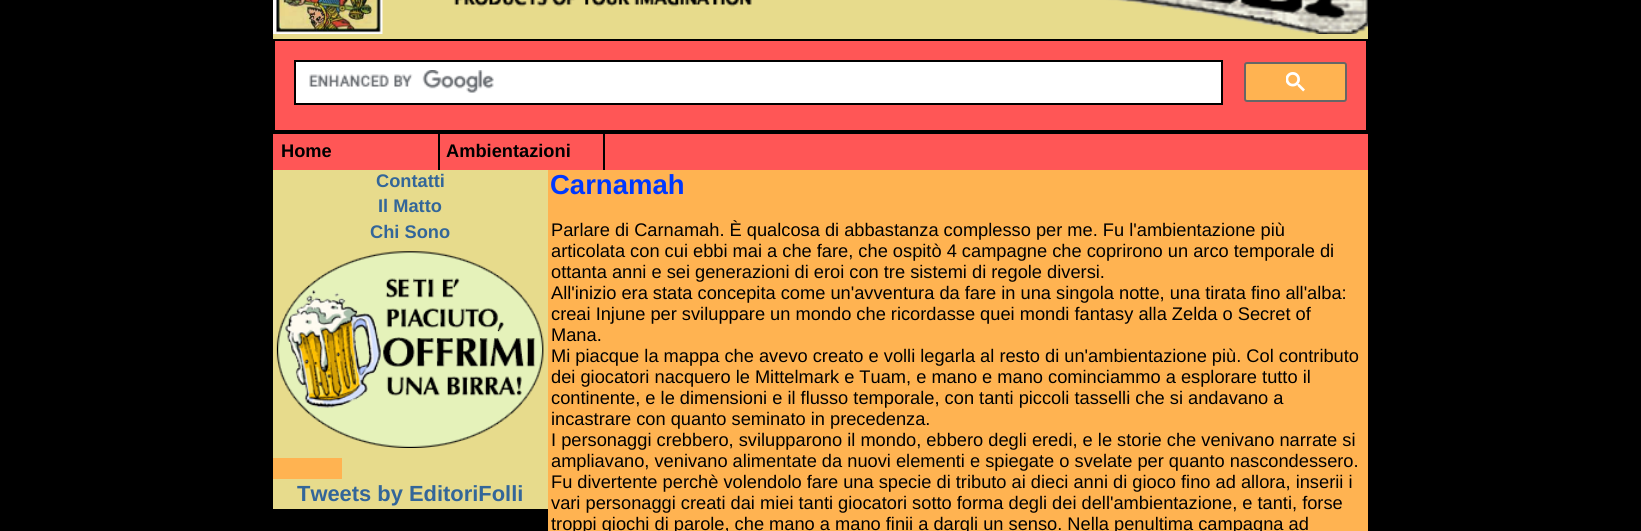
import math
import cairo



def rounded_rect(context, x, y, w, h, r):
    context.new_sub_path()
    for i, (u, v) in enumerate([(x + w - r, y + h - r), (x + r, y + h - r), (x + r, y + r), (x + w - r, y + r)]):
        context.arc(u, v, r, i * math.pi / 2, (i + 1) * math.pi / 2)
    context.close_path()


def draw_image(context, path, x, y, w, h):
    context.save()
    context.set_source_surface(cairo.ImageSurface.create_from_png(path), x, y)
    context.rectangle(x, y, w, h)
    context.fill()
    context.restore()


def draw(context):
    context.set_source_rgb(0, 0, 0)
    context.paint()
    context.set_source_rgb(231 / 255, 219 / 255, 140 / 255)
    context.rectangle(273, 0, 1095, 39)
    context.fill()
    draw_image(context, "images/1.png", 273, 0, 110, 34)
    draw_image(context, "images/2.png", 454, 0, 914, 34)
    context.set_source_rgb(1, 86 / 255, 86 / 255)
    context.rectangle(275, 41, 1091, 89)
    context.fill()
    context.set_source_rgb(1, 1, 1)
    context.rectangle(295, 61, 927, 43)
    context.fill_preserve()
    context.set_source_rgb(0, 0, 0)
    context.stroke()
    draw_image(context, "images/3.png", 309, 70, 185, 23)
    context.set_source_rgb(1, 179 / 255, 81 / 255)
    rounded_rect(context, 1245, 63, 101, 38, 2)
    context.fill_preserve()
    context.set_source_rgb(102 / 255, 102 / 255, 102 / 255)
    context.stroke()
    draw_image(context, "images/4.png", 1286, 72, 19, 20)
    context.set_source_rgb(1, 86 / 255, 86 / 255)
    context.rectangle(273, 134, 1095, 36)
    context.fill()
    context.set_source_rgb(0, 0, 0)
    context.rectangle(438, 134, 2, 36)
    context.fill()
    context.rectangle(603, 134, 2, 36)
    context.fill()
    context.set_source_rgb(231 / 255, 219 / 255, 140 / 255)
    context.rectangle(273, 170, 275, 339)
    context.fill()
    draw_image(context, "images/5.png", 276, 251, 268, 197)
    context.set_source_rgb(1, 179 / 255, 81 / 255)
    context.rectangle(273, 458, 69, 21)
    context.fill()
    context.rectangle(548, 170, 820, 361)
    context.fill()
    context.select_font_face("Liberation Sans", cairo.FontSlant.NORMAL, cairo.FontWeight.BOLD)
    context.set_font_size(18.25)
    context.set_source_rgb(0, 0, 0)
    context.move_to(281, 157)
    context.show_text("Home")
    context.move_to(446, 157)
    context.show_text("Ambientazioni")
    context.set_source_rgb(51 / 255, 102 / 255, 153 / 255)
    context.move_to(376, 187)
    context.show_text("Contatti")
    context.move_to(378, 212)
    context.show_text("Il Matto")
    context.move_to(370, 238)
    context.show_text("Chi Sono")
    context.set_font_size(21.9)
    context.move_to(297, 501)
    context.show_text("Tweets by EditoriFolli")
    context.set_font_size(27.5)
    context.set_source_rgb(0, 56 / 255, 1)
    context.move_to(550, 194)
    context.show_text("Carnamah")
    context.select_font_face("Liberation Sans")
    context.set_font_size(18.25)
    context.set_source_rgb(0, 0, 0)
    context.move_to(551, 236)
    context.show_text("Parlare di Carnamah. È qualcosa di abbastanza complesso per me. Fu l'ambientazione più")
    context.move_to(551, 257)
    context.show_text("articolata con cui ebbi mai a che fare, che ospitò 4 campagne che coprirono un arco temporale di")
    context.move_to(551, 278)
    context.show_text("ottanta anni e sei generazioni di eroi con tre sistemi di regole diversi.")
    context.move_to(551, 299)
    context.show_text("All'inizio era stata concepita come un'avventura da fare in una singola notte, una tirata fino all'alba:")
    context.move_to(551, 320)
    context.show_text("creai Injune per sviluppare un mondo che ricordasse quei mondi fantasy alla Zelda o Secret of")
    context.move_to(551, 341)
    context.show_text("Mana.")
    context.move_to(551, 362)
    context.show_text("Mi piacque la mappa che avevo creato e volli legarla al resto di un'ambientazione più. Col contributo")
    context.move_to(551, 383)
    context.show_text("dei giocatori nacquero le Mittelmark e Tuam, e mano e mano cominciammo a esplorare tutto il")
    context.move_to(551, 404)
    context.show_text("continente, e le dimensioni e il flusso temporale, con tanti piccoli tasselli che si andavano a")
    context.move_to(551, 425)
    context.show_text("incastrare con quanto seminato in precedenza.")
    context.move_to(551, 446)
    context.show_text("I personaggi crebbero, svilupparono il mondo, ebbero degli eredi, e le storie che venivano narrate si")
    context.move_to(551, 467)
    context.show_text("ampliavano, venivano alimentate da nuovi elementi e spiegate o svelate per quanto nascondessero.")
    context.move_to(551, 488)
    context.show_text("Fu divertente perchè volendolo fare una specie di tributo ai dieci anni di gioco fino ad allora, inserii i")
    context.move_to(551, 509)
    context.show_text("vari personaggi creati dai miei tanti giocatori sotto forma degli dei dell'ambientazione, e tanti, forse")
    context.move_to(551, 530)
    context.show_text("troppi giochi di parole, che mano a mano finii a dargli un senso. Nella penultima campagna ad")


surface = cairo.ImageSurface(cairo.Format.RGB24, 1641, 531)
context = cairo.Context(surface)
options = cairo.FontOptions()
options.set_hint_metrics(cairo.HintMetrics.OFF)
options.set_hint_style(cairo.HintStyle.NONE)
context.set_font_options(options)
context.set_miter_limit(4)
draw(context)
surface.write_to_png("out.png")
